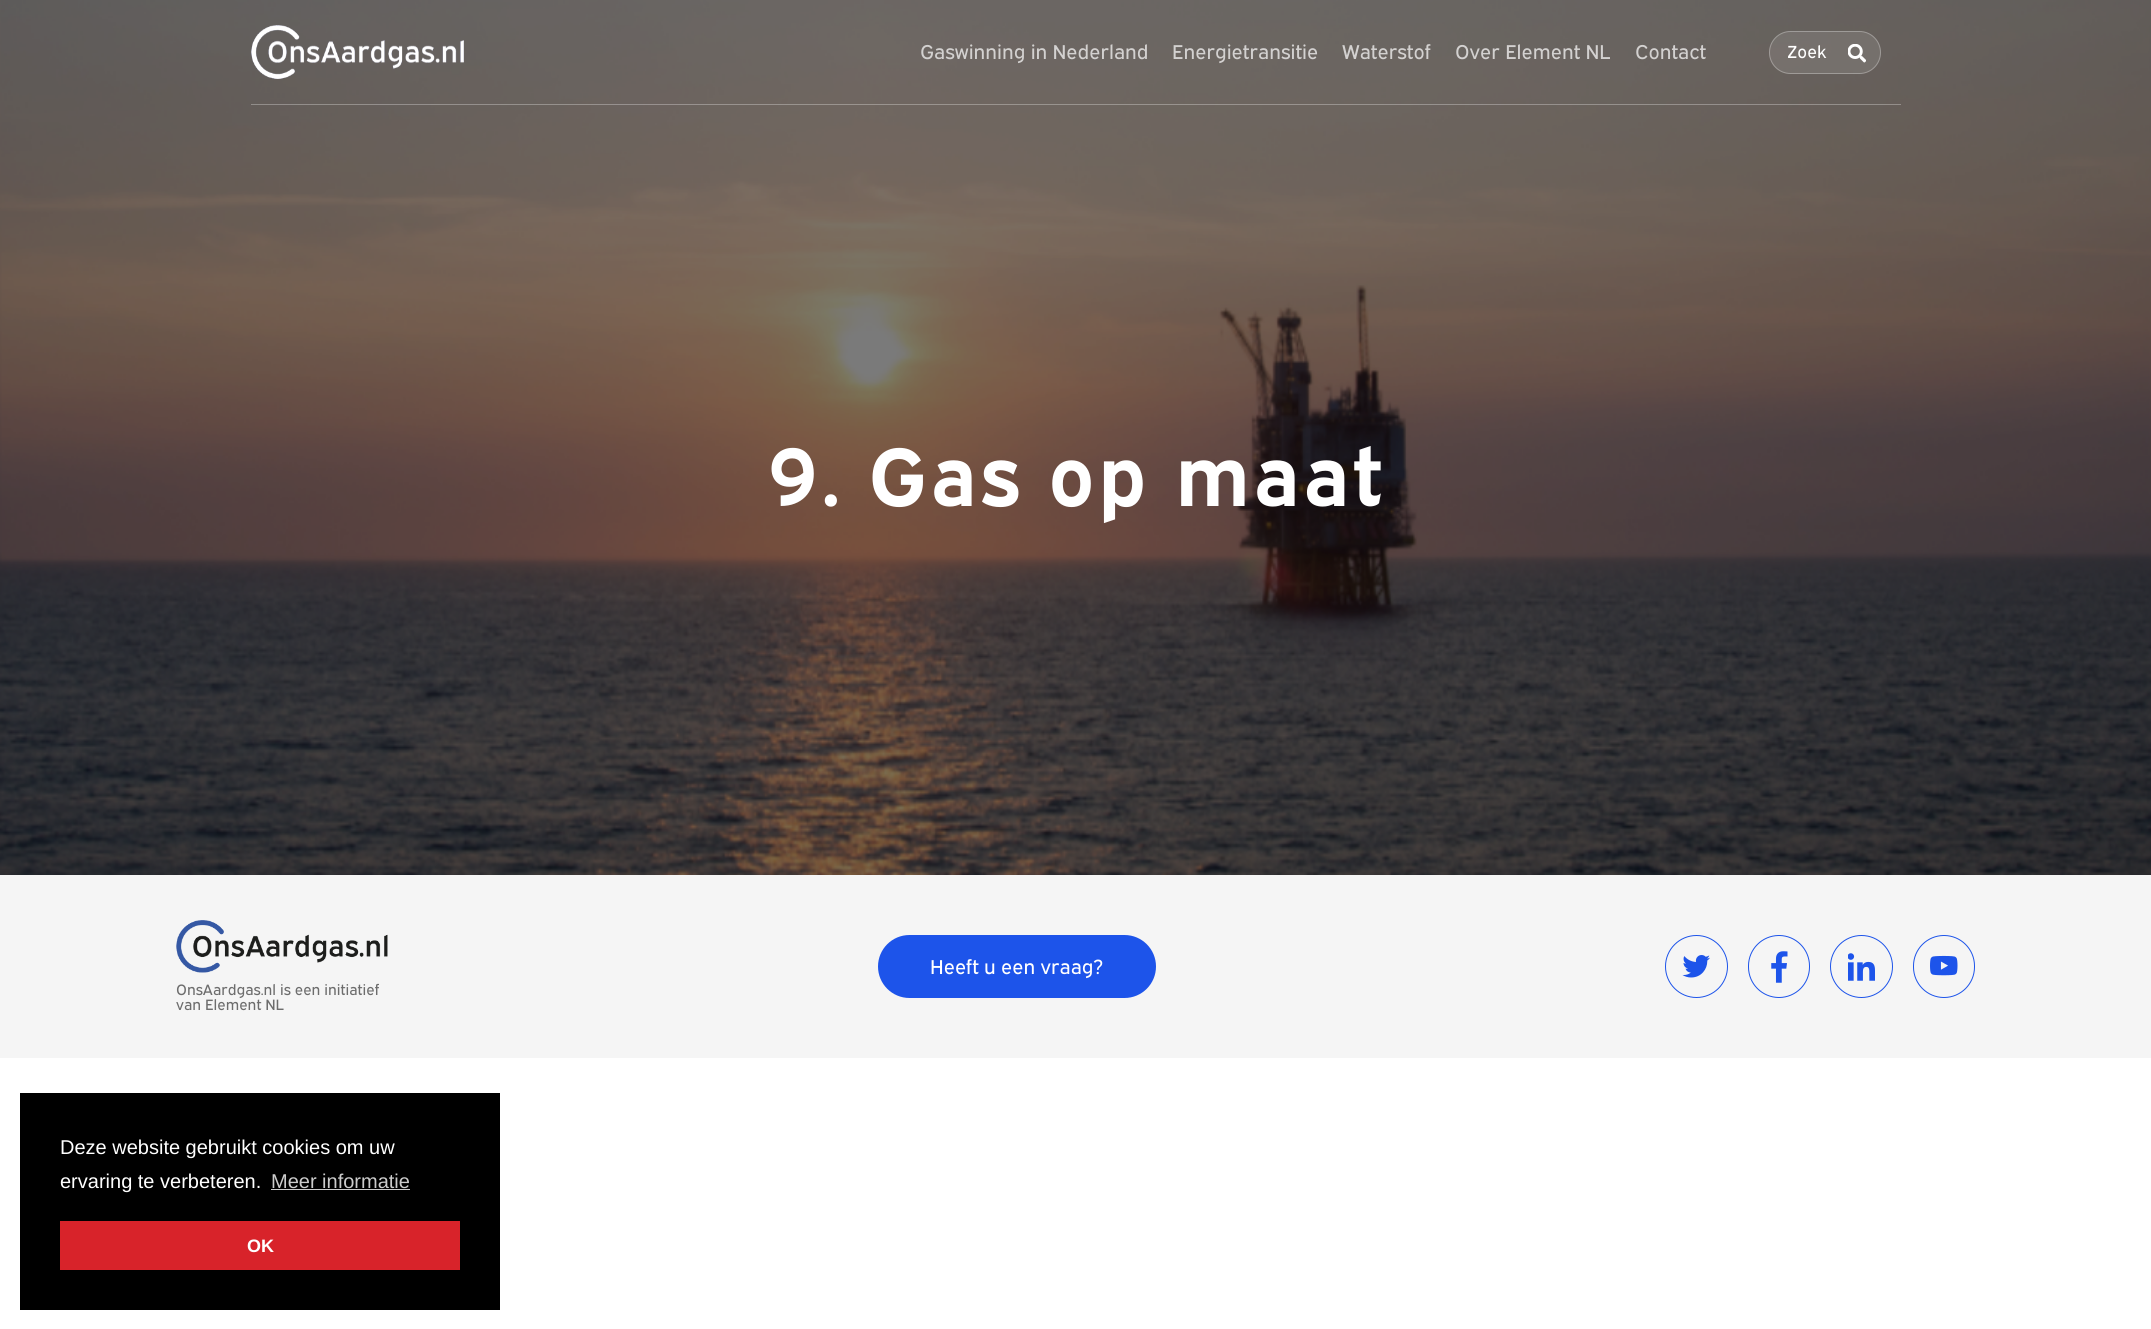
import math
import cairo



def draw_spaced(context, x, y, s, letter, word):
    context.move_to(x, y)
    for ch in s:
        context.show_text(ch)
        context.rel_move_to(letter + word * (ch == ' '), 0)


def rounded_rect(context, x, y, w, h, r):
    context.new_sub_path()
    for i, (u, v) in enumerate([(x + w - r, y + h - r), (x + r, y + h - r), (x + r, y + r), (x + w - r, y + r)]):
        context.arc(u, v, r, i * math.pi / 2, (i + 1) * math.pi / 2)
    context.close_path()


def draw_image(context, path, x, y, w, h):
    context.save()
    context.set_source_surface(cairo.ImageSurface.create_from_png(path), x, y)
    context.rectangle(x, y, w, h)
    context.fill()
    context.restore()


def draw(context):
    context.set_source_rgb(1, 1, 1)
    context.paint()
    context.set_source_rgb(0, 0, 0)
    context.rectangle(0, 0, 2151, 875)
    context.fill()
    draw_image(context, "images/3.png", 0, 0, 2151, 875)
    context.set_source_rgba(1, 1, 1, 0.3)
    context.rectangle(251, 104, 1650, 1)
    context.fill()
    draw_image(context, "images/1.png", 251, 25, 213, 54)
    context.set_source_rgba(1, 1, 1, 0.1)
    rounded_rect(context, 1769, 31, 112, 43, 21.5)
    context.fill()
    rounded_rect(context, 1769.5, 31.5, 111, 42, 21)
    context.set_source_rgba(1, 1, 1, 0.3)
    context.set_line_width(1)
    context.stroke()
    draw_image(context, "images/2.png", 1848, 44, 18, 19)
    context.set_source_rgb(245 / 255, 245 / 255, 245 / 255)
    context.rectangle(0, 875, 2151, 183)
    context.fill()
    context.set_source_rgb(29 / 255, 84 / 255, 234 / 255)
    rounded_rect(context, 878, 935, 278, 63, 31.5)
    context.fill()
    context.arc(1696.5, 966.5, 31, 0, 2 * math.pi)
    context.stroke()
    draw_image(context, "images/4.png", 1682, 955, 28, 23)
    rounded_rect(context, 1748.5, 935.5, 61, 62, 30.5)
    context.stroke()
    draw_image(context, "images/5.png", 1771, 951, 17, 32)
    context.arc(1861.5, 966.5, 31, 0, 2 * math.pi)
    context.stroke()
    draw_image(context, "images/6.png", 1848, 953, 27, 28)
    rounded_rect(context, 1913.5, 935.5, 61, 62, 30.5)
    context.stroke()
    draw_image(context, "images/7.png", 1930, 955, 28, 21)
    draw_image(context, "images/8.png", 176, 920, 212, 53)
    context.set_source_rgb(0, 0, 0)
    context.rectangle(20, 1093, 480, 217)
    context.fill()
    context.set_source_rgb(204 / 255, 204 / 255, 204 / 255)
    context.rectangle(271, 1189, 139, 1)
    context.fill()
    context.set_source_rgb(216 / 255, 35 / 255, 42 / 255)
    context.rectangle(60, 1221, 400, 49)
    context.fill()
    context.select_font_face("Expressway")
    context.set_font_size(20)
    context.set_source_rgb(211 / 255, 209 / 255, 208 / 255)
    context.move_to(920, 59)
    context.show_text("Gaswinning in Nederland")
    context.move_to(1172, 59)
    context.show_text("Energietransitie")
    context.move_to(1342, 59)
    context.show_text("Waterstof")
    context.move_to(1455, 59)
    context.show_text("Over Element NL")
    context.move_to(1635, 59)
    context.show_text("Contact")
    context.set_font_size(17.5)
    context.set_source_rgb(1, 1, 1)
    context.move_to(1787, 58)
    context.show_text("Zoek")
    context.select_font_face("Expressway", cairo.FontSlant.NORMAL, cairo.FontWeight.BOLD)
    context.set_font_size(82.5)
    draw_spaced(context, 767, 506, "9. Gas op maat", 2.5, 0)
    context.select_font_face("Expressway")
    context.set_font_size(20)
    context.move_to(930, 974)
    context.show_text("Heeft u een vraag?")
    context.set_font_size(15)
    context.set_source_rgb(109 / 255, 109 / 255, 109 / 255)
    context.move_to(176, 995)
    context.show_text("OnsAardgas.nl is een initiatief")
    context.move_to(176, 1010)
    context.show_text("van Element NL")
    context.select_font_face("Liberation Sans")
    context.set_font_size(20)
    context.set_source_rgb(1, 1, 1)
    context.move_to(60, 1154)
    context.show_text("Deze website gebruikt cookies om uw")
    context.move_to(60, 1188)
    context.show_text("ervaring te verbeteren.")
    context.set_source_rgb(204 / 255, 204 / 255, 204 / 255)
    context.move_to(271, 1188)
    context.show_text("Meer informatie")
    context.select_font_face("Liberation Sans", cairo.FontSlant.NORMAL, cairo.FontWeight.BOLD)
    context.set_font_size(18)
    context.set_source_rgb(1, 1, 1)
    context.move_to(247, 1252)
    context.show_text("OK")


surface = cairo.ImageSurface(cairo.Format.RGB24, 2151, 1329)
context = cairo.Context(surface)
options = cairo.FontOptions()
options.set_hint_metrics(cairo.HintMetrics.OFF)
options.set_hint_style(cairo.HintStyle.NONE)
context.set_font_options(options)
context.set_miter_limit(4)
draw(context)
surface.write_to_png("out.png")
